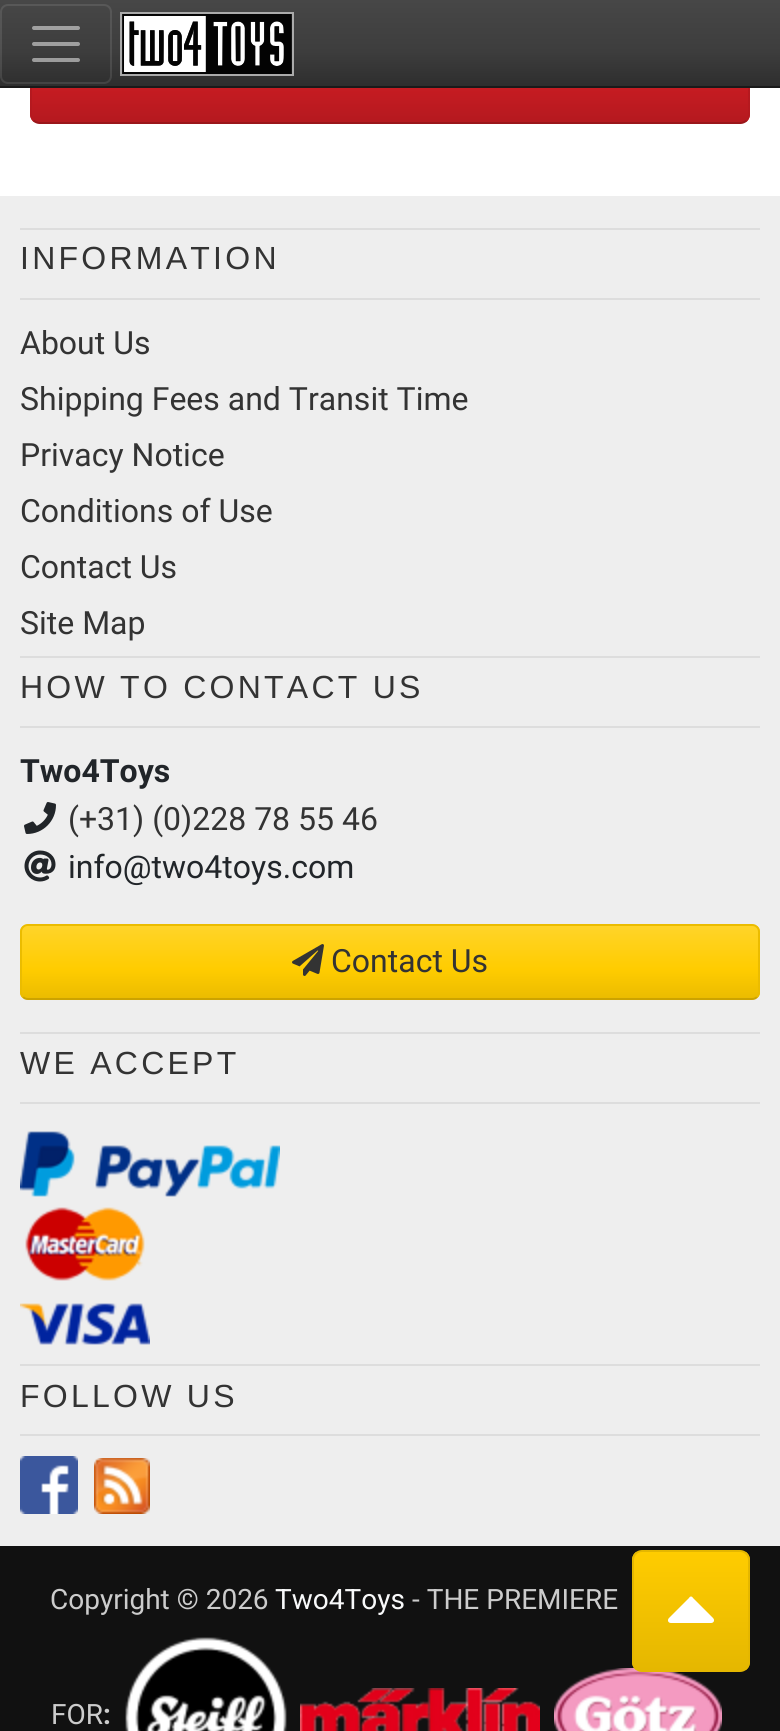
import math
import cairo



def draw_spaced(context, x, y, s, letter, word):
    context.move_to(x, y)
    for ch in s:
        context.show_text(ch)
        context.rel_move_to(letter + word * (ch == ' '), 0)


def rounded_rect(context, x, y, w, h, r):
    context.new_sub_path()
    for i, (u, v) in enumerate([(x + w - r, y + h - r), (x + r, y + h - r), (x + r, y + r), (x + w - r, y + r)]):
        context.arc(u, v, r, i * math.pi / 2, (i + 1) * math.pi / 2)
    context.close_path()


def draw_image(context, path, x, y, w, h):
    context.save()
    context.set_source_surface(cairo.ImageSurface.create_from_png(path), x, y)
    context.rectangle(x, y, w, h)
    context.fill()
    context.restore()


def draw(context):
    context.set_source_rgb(1, 1, 1)
    context.paint()
    context.save()
    rounded_rect(context, 30, 28, 720, 96, 10)
    context.clip()
    gradient = cairo.LinearGradient(390, 30, 390, 122)
    gradient.add_color_stop_rgba(0, 225 / 255, 43 / 255, 49 / 255, 1)
    gradient.add_color_stop_rgba(0.6, 199 / 255, 28 / 255, 34 / 255, 1)
    gradient.add_color_stop_rgba(1, 181 / 255, 25 / 255, 31 / 255, 1)
    context.set_source(gradient)
    context.rectangle(30, 88, 720, 34)
    context.fill()
    context.restore()
    context.new_path()
    context.move_to(746.5, 120.5)
    context.curve_to(745, 122, 742.5, 123, 740.5, 123)
    context.line_to(39.5, 123)
    context.curve_to(37.5, 123, 35, 122, 33.5, 120.5)
    context.set_source_rgb(154 / 255, 22 / 255, 26 / 255)
    context.stroke()
    context.new_path()
    context.move_to(33.5, 120.5)
    context.curve_to(32, 119, 31, 116.5, 31, 114.5)
    context.line_to(31, 37.5)
    context.curve_to(31, 35.5, 32, 33, 33.5, 31.5)
    context.curve_to(35, 30, 37.5, 29, 39.5, 29)
    context.line_to(740.5, 29)
    context.curve_to(742.5, 29, 745, 30, 746.5, 31.5)
    context.curve_to(748, 33, 749, 35.5, 749, 37.5)
    context.line_to(749, 114.5)
    context.curve_to(749, 116.5, 748, 119, 746.5, 120.5)
    context.set_source_rgb(181 / 255, 25 / 255, 31 / 255)
    context.stroke()
    gradient = cairo.LinearGradient(390, 0, 390, 86)
    gradient.add_color_stop_rgba(0, 71 / 255, 71 / 255, 71 / 255, 1)
    gradient.add_color_stop_rgba(0.6, 61 / 255, 61 / 255, 61 / 255, 1)
    gradient.add_color_stop_rgba(1, 46 / 255, 46 / 255, 46 / 255, 1)
    context.set_source(gradient)
    context.rectangle(0, 0, 780, 86)
    context.fill()
    context.set_source_rgb(26 / 255, 26 / 255, 26 / 255)
    context.rectangle(0, 86, 780, 2)
    context.fill()
    rounded_rect(context, 1, 5, 110, 78, 7)
    context.set_source_rgba(1, 1, 1, 0.1)
    context.stroke()
    context.new_path()
    context.move_to(34, 28)
    context.line_to(78, 28)
    context.move_to(34, 44)
    context.line_to(78, 44)
    context.move_to(34, 60)
    context.line_to(78, 60)
    context.set_source_rgba(1, 1, 1, 0.5)
    context.set_line_width(4)
    context.set_line_cap(cairo.LineCap.ROUND)
    context.stroke()
    context.rectangle(121, 13, 172, 62)
    context.set_source_rgb(170 / 255, 170 / 255, 170 / 255)
    context.set_line_width(2)
    context.set_line_cap(cairo.LineCap.BUTT)
    context.stroke()
    draw_image(context, "images/1.png", 122, 14, 170, 60)
    context.set_source_rgb(238 / 255, 238 / 255, 238 / 255)
    context.rectangle(0, 196, 780, 1350)
    context.fill()
    context.set_source_rgb(221 / 255, 221 / 255, 221 / 255)
    context.rectangle(20, 228, 740, 2)
    context.fill()
    context.rectangle(20, 298, 740, 2)
    context.fill()
    context.rectangle(20, 656, 740, 2)
    context.fill()
    context.rectangle(20, 726, 740, 2)
    context.fill()
    draw_image(context, "images/2.png", 24, 802, 32, 32)
    draw_image(context, "images/3.png", 24, 850, 32, 32)
    context.save()
    rounded_rect(context, 20, 924, 740, 76, 8)
    context.clip()
    gradient = cairo.LinearGradient(390, 926, 390, 998)
    gradient.add_color_stop_rgba(0, 1, 212 / 255, 41 / 255, 1)
    gradient.add_color_stop_rgba(0.6, 1, 204 / 255, 0, 1)
    gradient.add_color_stop_rgba(1, 235 / 255, 188 / 255, 0, 1)
    context.set_source(gradient)
    context.rectangle(20, 926, 740, 72)
    context.fill()
    context.restore()
    context.new_path()
    context.move_to(757, 997)
    context.curve_to(755.5, 998.5, 754, 999, 752, 999)
    context.line_to(28, 999)
    context.curve_to(26, 999, 24.5, 998.5, 23, 997)
    context.set_source_rgb(204 / 255, 163 / 255, 0)
    context.stroke()
    context.new_path()
    context.move_to(23, 997)
    context.curve_to(21.5, 995.5, 21, 994, 21, 992)
    context.line_to(21, 932)
    context.curve_to(21, 930, 21.5, 928.5, 23, 927)
    context.curve_to(24.5, 925.5, 26, 925, 28, 925)
    context.line_to(752, 925)
    context.curve_to(754, 925, 755.5, 925.5, 757, 927)
    context.curve_to(758.5, 928.5, 759, 930, 759, 932)
    context.line_to(759, 992)
    context.curve_to(759, 994, 758.5, 995.5, 757, 997)
    context.set_source_rgb(235 / 255, 188 / 255, 0)
    context.stroke()
    draw_image(context, "images/4.png", 292, 944, 32, 32)
    context.set_source_rgb(221 / 255, 221 / 255, 221 / 255)
    context.rectangle(20, 1032, 740, 2)
    context.fill()
    context.rectangle(20, 1102, 740, 2)
    context.fill()
    draw_image(context, "images/5.png", 20, 1131, 260, 66)
    draw_image(context, "images/6.png", 25, 1207, 120, 74)
    draw_image(context, "images/7.png", 20, 1303, 130, 42)
    context.rectangle(20, 1364, 740, 2)
    context.fill()
    context.rectangle(20, 1434, 740, 2)
    context.fill()
    draw_image(context, "images/8.png", 20, 1456, 58, 58)
    draw_image(context, "images/9.png", 94, 1458, 56, 56)
    context.set_source_rgb(17 / 255, 17 / 255, 17 / 255)
    context.rectangle(0, 1546, 780, 185)
    context.fill()
    draw_image(context, "images/10.png", 125, 1637, 162, 94)
    draw_image(context, "images/11.png", 300, 1688, 240, 43)
    draw_image(context, "images/12.png", 554, 1668, 168, 63)
    context.save()
    rounded_rect(context, 632, 1550, 118, 122, 10)
    context.clip()
    gradient = cairo.LinearGradient(691, 1552, 691, 1670)
    gradient.add_color_stop_rgba(0, 1, 204 / 255, 0, 1)
    gradient.add_color_stop_rgba(1, 229 / 255, 183 / 255, 0, 1)
    context.set_source(gradient)
    context.rectangle(632, 1552, 118, 118)
    context.fill()
    context.restore()
    rounded_rect(context, 633, 1551, 116, 120, 9)
    context.set_source_rgb(229 / 255, 183 / 255, 0)
    context.stroke()
    context.set_source_rgb(1, 1, 1)
    context.new_path()
    context.move_to(711, 1623)
    context.line_to(671, 1623)
    context.curve_to(668, 1623, 667, 1620, 669, 1618)
    context.line_to(689, 1598)
    context.curve_to(690, 1596, 692, 1596, 693, 1598)
    context.line_to(713, 1618)
    context.curve_to(715, 1620, 714, 1623, 711, 1623)
    context.close_path()
    context.fill()
    context.select_font_face("Liberation Sans")
    context.set_font_size(32)
    context.set_source_rgb(51 / 255, 51 / 255, 51 / 255)
    draw_spaced(context, 20, 269, "INFORMATION", 3.25, 0)
    context.select_font_face("Roboto")
    context.move_to(20, 354)
    context.show_text("About Us")
    context.move_to(20, 410)
    context.show_text("Shipping Fees and Transit Time")
    context.move_to(20, 466)
    context.show_text("Privacy Notice")
    context.move_to(20, 522)
    context.show_text("Conditions of Use")
    context.move_to(20, 578)
    context.show_text("Contact Us")
    context.move_to(20, 634)
    context.show_text("Site Map")
    context.select_font_face("Liberation Sans")
    draw_spaced(context, 20, 698, "HOW TO CONTACT US", 3.25, 0)
    context.select_font_face("Roboto", cairo.FontSlant.NORMAL, cairo.FontWeight.BOLD)
    context.set_source_rgb(33 / 255, 37 / 255, 41 / 255)
    context.move_to(20, 782)
    context.show_text("Two4Toys")
    context.select_font_face("Roboto")
    context.set_source_rgb(51 / 255, 51 / 255, 51 / 255)
    context.move_to(68, 830)
    context.show_text("(+31) (0)228 78 55 46")
    context.set_source_rgb(33 / 255, 37 / 255, 41 / 255)
    context.move_to(68, 878)
    context.show_text("info@two4toys.com")
    context.set_source_rgb(51 / 255, 51 / 255, 51 / 255)
    context.move_to(331, 972)
    context.show_text("Contact Us")
    context.select_font_face("Liberation Sans")
    draw_spaced(context, 20, 1074, "WE ACCEPT", 3.25, 0)
    draw_spaced(context, 20, 1407, "FOLLOW US", 3.25, 0)
    context.select_font_face("Roboto")
    context.set_font_size(28)
    context.set_source_rgb(204 / 255, 204 / 255, 204 / 255)
    context.move_to(50, 1609)
    context.show_text("Copyright © 2026")
    context.set_source_rgb(248 / 255, 249 / 255, 250 / 255)
    context.move_to(275, 1609)
    context.show_text("Two4Toys")
    context.set_source_rgb(204 / 255, 204 / 255, 204 / 255)
    context.move_to(412, 1609)
    context.show_text("- THE PREMIERE")
    context.move_to(51, 1724)
    context.show_text("FOR")
    context.select_font_face("Roboto", cairo.FontSlant.NORMAL, cairo.FontWeight.BOLD)
    context.move_to(103, 1724)
    context.show_text(":")


surface = cairo.ImageSurface(cairo.Format.RGB24, 780, 1731)
context = cairo.Context(surface)
options = cairo.FontOptions()
options.set_hint_metrics(cairo.HintMetrics.OFF)
options.set_hint_style(cairo.HintStyle.NONE)
context.set_font_options(options)
context.set_miter_limit(4)
draw(context)
surface.write_to_png("out.png")
